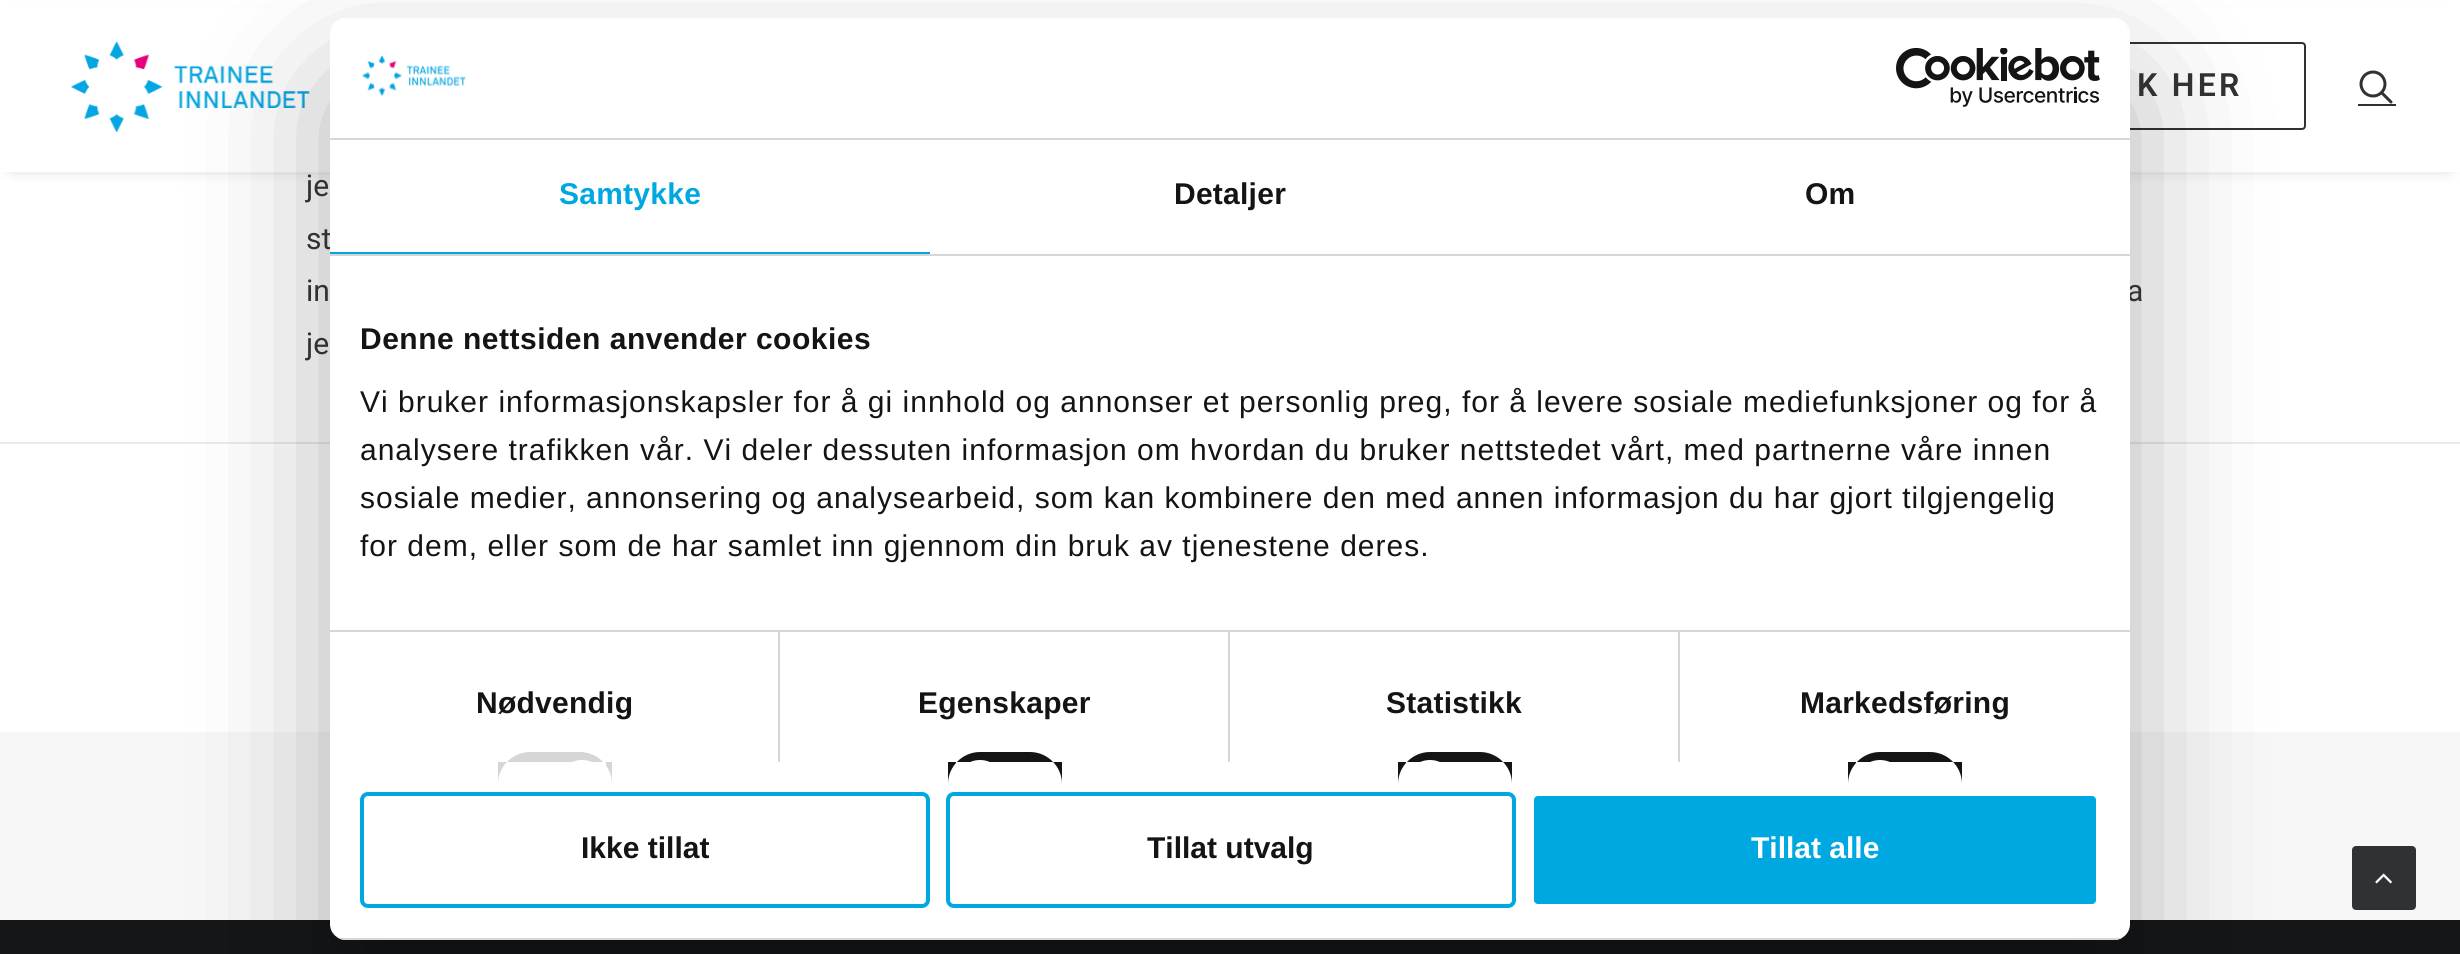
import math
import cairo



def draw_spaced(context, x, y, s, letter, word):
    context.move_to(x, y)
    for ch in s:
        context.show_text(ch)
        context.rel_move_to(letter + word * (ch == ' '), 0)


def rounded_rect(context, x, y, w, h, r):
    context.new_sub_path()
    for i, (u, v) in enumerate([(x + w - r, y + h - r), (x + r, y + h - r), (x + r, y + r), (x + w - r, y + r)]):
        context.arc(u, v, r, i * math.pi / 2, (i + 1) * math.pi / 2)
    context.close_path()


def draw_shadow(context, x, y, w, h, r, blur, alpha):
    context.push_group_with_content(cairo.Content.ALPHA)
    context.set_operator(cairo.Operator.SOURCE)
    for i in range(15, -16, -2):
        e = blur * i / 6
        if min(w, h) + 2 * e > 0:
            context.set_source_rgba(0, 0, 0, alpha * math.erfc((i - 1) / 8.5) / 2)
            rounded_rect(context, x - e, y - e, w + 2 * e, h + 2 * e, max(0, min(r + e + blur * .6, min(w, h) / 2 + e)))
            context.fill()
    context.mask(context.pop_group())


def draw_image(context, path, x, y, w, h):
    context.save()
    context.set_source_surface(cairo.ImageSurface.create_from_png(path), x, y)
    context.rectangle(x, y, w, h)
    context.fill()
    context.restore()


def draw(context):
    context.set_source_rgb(1, 1, 1)
    context.paint()
    context.set_source_rgb(0, 0, 0)
    draw_shadow(context, 14, 28, 2432, 132, 0, 10, 0.6)
    context.set_source_rgb(1, 1, 1)
    context.rectangle(0, 7, 2460, 165)
    context.fill()
    draw_image(context, "images/1.png", 71, 41, 239, 92)
    rounded_rect(context, 2025, 43, 280, 86, 3)
    context.set_source_rgb(48 / 255, 49 / 255, 51 / 255)
    context.stroke()
    draw_image(context, "images/2.png", 2359, 70, 34, 34)
    context.rectangle(2358, 104, 38, 2)
    context.fill()
    context.set_source_rgb(234 / 255, 234 / 255, 234 / 255)
    context.rectangle(0, 442, 2460, 2)
    context.fill()
    context.set_source_rgb(247 / 255, 247 / 255, 247 / 255)
    context.rectangle(0, 732, 2460, 188)
    context.fill()
    context.set_source_rgb(20 / 255, 22 / 255, 24 / 255)
    context.rectangle(0, 920, 2460, 34)
    context.fill()
    context.set_source_rgb(0, 0, 0)
    draw_shadow(context, 330, 82, 1800, 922, 16, 68, 0.3)
    context.set_source_rgb(48 / 255, 49 / 255, 51 / 255)
    rounded_rect(context, 2353, 847, 62, 62, 3)
    context.fill_preserve()
    context.stroke()
    draw_image(context, "images/5.png", 2375, 873, 17, 11)
    context.select_font_face("Roboto SemiBold")
    context.set_font_size(32)
    draw_spaced(context, 2137, 96, "K HER", 3.25, 0)
    context.select_font_face("Roboto")
    context.set_font_size(30)
    context.move_to(306, 196)
    context.show_text("je")
    context.move_to(306, 249)
    context.show_text("st")
    context.move_to(306, 301)
    context.show_text("in")
    context.move_to(2127, 301)
    context.show_text("a")
    context.move_to(306, 354)
    context.show_text("je")
    context.set_source_rgb(1, 1, 1)
    rounded_rect(context, 330, 18, 1800, 922, 16)
    context.fill()
    context.set_source_rgb(214 / 255, 214 / 255, 214 / 255)
    context.rectangle(330, 138, 1800, 2)
    context.fill()
    draw_image(context, "images/3.png", 362, 55, 104, 42)
    draw_image(context, "images/4.png", 1896, 48, 204, 59)
    context.rectangle(330, 254, 1800, 2)
    context.fill()
    context.set_source_rgb(0, 168 / 255, 225 / 255)
    context.rectangle(330, 252, 600, 2)
    context.fill()
    context.select_font_face("Liberation Sans", cairo.FontSlant.NORMAL, cairo.FontWeight.BOLD)
    draw_spaced(context, 559, 204, "Samtykke", 0.25, 0)
    context.set_source_rgb(20 / 255, 20 / 255, 20 / 255)
    draw_spaced(context, 1174, 204, "Detaljer", 0.25, 0)
    draw_spaced(context, 1805, 204, "Om", 0.25, 0)
    context.set_source_rgb(214 / 255, 214 / 255, 214 / 255)
    context.rectangle(330, 630, 1800, 2)
    context.fill()
    context.set_source_rgb(20 / 255, 20 / 255, 20 / 255)
    draw_spaced(context, 360, 349, "Denne nettsiden anvender cookies", 0.5, 0)
    context.select_font_face("Liberation Sans")
    draw_spaced(context, 360, 412, "Vi bruker informasjonskapsler for å gi innhold og annonser et personlig preg, for å levere sosiale mediefunksjoner og for å", 1, 0)
    draw_spaced(context, 360, 460, "analysere trafikken vår. Vi deler dessuten informasjon om hvordan du bruker nettstedet vårt, med partnerne våre innen", 1, 0)
    draw_spaced(context, 360, 508, "sosiale medier, annonsering og analysearbeid, som kan kombinere den med annen informasjon du har gjort tilgjengelig", 1, 0)
    draw_spaced(context, 360, 556, "for dem, eller som de har samlet inn gjennom din bruk av tjenestene deres.", 1, 0)
    context.set_source_rgb(214 / 255, 214 / 255, 214 / 255)
    context.rectangle(778, 632, 2, 130)
    context.fill()
    context.select_font_face("Liberation Sans", cairo.FontSlant.NORMAL, cairo.FontWeight.BOLD)
    context.set_source_rgb(20 / 255, 20 / 255, 20 / 255)
    draw_spaced(context, 476, 713, "Nødvendig", 0.25, 0)
    context.set_source_rgb(214 / 255, 214 / 255, 214 / 255)
    context.new_path()
    context.move_to(530, 752)
    context.line_to(580, 752)
    context.curve_to(597.5, 752, 612, 766.5, 612, 784)
    context.line_to(612, 762)
    context.line_to(498, 762)
    context.line_to(498, 784)
    context.curve_to(498, 766.5, 512.5, 752, 530, 752)
    context.close_path()
    context.fill()
    context.set_source_rgb(1, 1, 1)
    context.new_path()
    context.move_to(582, 760)
    context.curve_to(595.5, 760, 606, 770.5, 606, 784)
    context.line_to(606, 762)
    context.line_to(558, 762)
    context.line_to(558, 784)
    context.curve_to(558, 770.5, 568.5, 760, 582, 760)
    context.close_path()
    context.fill()
    context.set_source_rgb(214 / 255, 214 / 255, 214 / 255)
    context.rectangle(1228, 632, 2, 130)
    context.fill()
    context.set_source_rgb(20 / 255, 20 / 255, 20 / 255)
    draw_spaced(context, 918, 713, "Egenskaper", 0.25, 0)
    context.new_path()
    context.move_to(980, 752)
    context.line_to(1030, 752)
    context.curve_to(1047.5, 752, 1062, 766.5, 1062, 784)
    context.line_to(1062, 762)
    context.line_to(948, 762)
    context.line_to(948, 784)
    context.curve_to(948, 766.5, 962.5, 752, 980, 752)
    context.close_path()
    context.fill()
    context.set_source_rgb(1, 1, 1)
    context.new_path()
    context.move_to(980, 760)
    context.curve_to(993.5, 760, 1004, 770.5, 1004, 784)
    context.line_to(1004, 762)
    context.line_to(956, 762)
    context.line_to(956, 784)
    context.curve_to(956, 770.5, 966.5, 760, 980, 760)
    context.close_path()
    context.fill()
    context.set_source_rgb(214 / 255, 214 / 255, 214 / 255)
    context.rectangle(1678, 632, 2, 130)
    context.fill()
    context.set_source_rgb(20 / 255, 20 / 255, 20 / 255)
    draw_spaced(context, 1386, 713, "Statistikk", 0.25, 0)
    context.new_path()
    context.move_to(1430, 752)
    context.line_to(1480, 752)
    context.curve_to(1497.5, 752, 1512, 766.5, 1512, 784)
    context.line_to(1512, 762)
    context.line_to(1398, 762)
    context.line_to(1398, 784)
    context.curve_to(1398, 766.5, 1412.5, 752, 1430, 752)
    context.close_path()
    context.fill()
    context.set_source_rgb(1, 1, 1)
    context.new_path()
    context.move_to(1430, 760)
    context.curve_to(1443.5, 760, 1454, 770.5, 1454, 784)
    context.line_to(1454, 762)
    context.line_to(1406, 762)
    context.line_to(1406, 784)
    context.curve_to(1406, 770.5, 1416.5, 760, 1430, 760)
    context.close_path()
    context.fill()
    context.set_source_rgb(20 / 255, 20 / 255, 20 / 255)
    draw_spaced(context, 1800, 713, "Markedsføring", 0.25, 0)
    context.new_path()
    context.move_to(1880, 752)
    context.line_to(1930, 752)
    context.curve_to(1947.5, 752, 1962, 766.5, 1962, 784)
    context.line_to(1962, 762)
    context.line_to(1848, 762)
    context.line_to(1848, 784)
    context.curve_to(1848, 766.5, 1862.5, 752, 1880, 752)
    context.close_path()
    context.fill()
    context.set_source_rgb(1, 1, 1)
    context.new_path()
    context.move_to(1880, 760)
    context.curve_to(1893.5, 760, 1904, 770.5, 1904, 784)
    context.line_to(1904, 762)
    context.line_to(1856, 762)
    context.line_to(1856, 784)
    context.curve_to(1856, 770.5, 1866.5, 760, 1880, 760)
    context.close_path()
    context.fill()
    context.save()
    rounded_rect(context, 330, 18, 1800, 922, 16)
    context.clip()
    context.set_source_rgb(214 / 255, 214 / 255, 214 / 255)
    context.rectangle(330, 938, 1800, 2)
    context.fill()
    context.restore()
    rounded_rect(context, 362, 794, 566, 112, 6)
    context.set_source_rgb(0, 168 / 255, 225 / 255)
    context.set_line_width(4)
    context.stroke()
    context.set_source_rgb(20 / 255, 20 / 255, 20 / 255)
    context.move_to(581, 858)
    context.show_text("Ikke tillat")
    rounded_rect(context, 948, 794, 566, 112, 6)
    context.set_source_rgb(0, 168 / 255, 225 / 255)
    context.stroke()
    context.set_source_rgb(20 / 255, 20 / 255, 20 / 255)
    context.move_to(1147, 858)
    context.show_text("Tillat utvalg")
    context.set_source_rgb(0, 168 / 255, 225 / 255)
    rounded_rect(context, 1532, 794, 566, 112, 6)
    context.fill_preserve()
    context.set_source_rgb(1, 1, 1)
    context.stroke()
    context.move_to(1751, 858)
    context.show_text("Tillat alle")


surface = cairo.ImageSurface(cairo.Format.RGB24, 2460, 954)
context = cairo.Context(surface)
options = cairo.FontOptions()
options.set_hint_metrics(cairo.HintMetrics.OFF)
options.set_hint_style(cairo.HintStyle.NONE)
context.set_font_options(options)
context.set_miter_limit(4)
draw(context)
surface.write_to_png("out.png")
